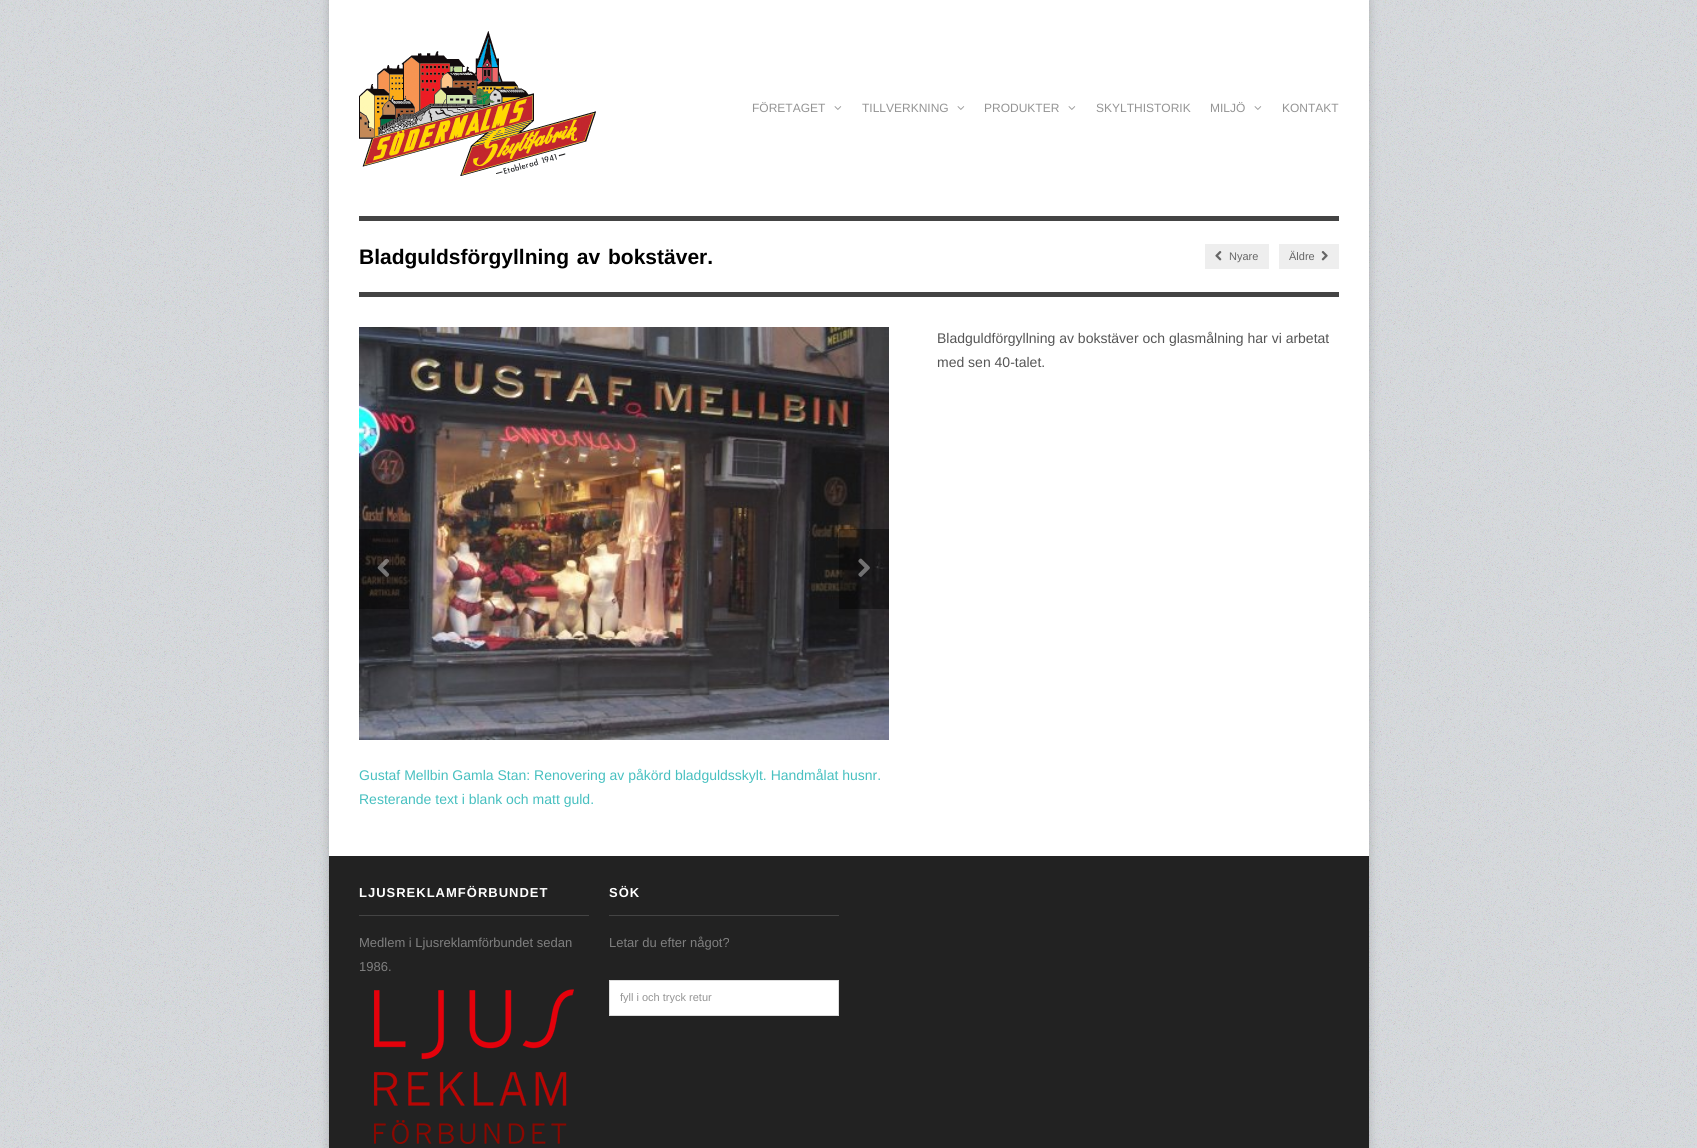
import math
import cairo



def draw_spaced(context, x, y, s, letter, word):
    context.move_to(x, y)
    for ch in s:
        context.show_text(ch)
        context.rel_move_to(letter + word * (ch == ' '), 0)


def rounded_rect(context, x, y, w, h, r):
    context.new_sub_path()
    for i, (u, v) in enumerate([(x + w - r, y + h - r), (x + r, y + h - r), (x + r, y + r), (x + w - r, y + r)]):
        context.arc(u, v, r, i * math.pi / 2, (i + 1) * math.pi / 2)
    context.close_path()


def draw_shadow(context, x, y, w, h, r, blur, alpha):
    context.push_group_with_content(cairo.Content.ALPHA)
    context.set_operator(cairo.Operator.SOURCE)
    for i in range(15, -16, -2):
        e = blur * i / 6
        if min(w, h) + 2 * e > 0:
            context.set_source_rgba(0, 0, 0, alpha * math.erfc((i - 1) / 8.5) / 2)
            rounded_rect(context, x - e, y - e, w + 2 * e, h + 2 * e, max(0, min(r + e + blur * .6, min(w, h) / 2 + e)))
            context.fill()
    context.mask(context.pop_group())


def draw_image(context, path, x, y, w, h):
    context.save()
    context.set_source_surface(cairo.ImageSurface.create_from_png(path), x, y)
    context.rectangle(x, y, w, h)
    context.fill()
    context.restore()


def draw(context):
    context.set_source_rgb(1, 1, 1)
    context.paint()
    draw_image(context, "images/1.png", 0, 0, 1697, 1148)
    context.set_source_rgb(0, 0, 0)
    draw_shadow(context, 329, 0, 1040, 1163, 0, 5, 0.2)
    context.set_source_rgb(1, 1, 1)
    context.rectangle(329, 0, 1040, 856)
    context.fill()
    context.set_source_rgb(68 / 255, 68 / 255, 68 / 255)
    context.rectangle(359, 216, 980, 5)
    context.fill()
    draw_image(context, "images/2.png", 359, 31, 237, 145)
    draw_image(context, "images/3.png", 834, 106, 8, 4)
    draw_image(context, "images/3.png", 957, 106, 8, 4)
    draw_image(context, "images/3.png", 1068, 106, 8, 4)
    draw_image(context, "images/3.png", 1254, 106, 8, 4)
    context.rectangle(359, 292, 980, 5)
    context.fill()
    context.set_source_rgb(238 / 255, 238 / 255, 238 / 255)
    context.rectangle(1205, 244, 64, 25)
    context.fill()
    draw_image(context, "images/4.png", 1215, 251, 7, 10)
    context.rectangle(1279, 244, 60, 25)
    context.fill()
    draw_image(context, "images/5.png", 1321, 251, 7, 10)
    draw_image(context, "images/8.png", 359, 327, 530, 413)
    context.set_source_rgba(0, 0, 0, 0.4)
    context.rectangle(359, 529, 50, 80)
    context.fill()
    draw_image(context, "images/6.png", 377, 558, 13, 19)
    context.rectangle(839, 529, 50, 80)
    context.fill()
    draw_image(context, "images/7.png", 858, 558, 12, 19)
    context.set_source_rgb(34 / 255, 34 / 255, 34 / 255)
    context.rectangle(329, 856, 1040, 292)
    context.fill()
    context.set_source_rgb(68 / 255, 68 / 255, 68 / 255)
    context.rectangle(359, 915, 230, 1)
    context.fill()
    draw_image(context, "images/9.png", 374, 989, 200, 155)
    context.rectangle(609, 915, 230, 1)
    context.fill()
    context.set_source_rgb(1, 1, 1)
    context.rectangle(609.5, 980.5, 229, 35)
    context.fill_preserve()
    context.set_source_rgb(221 / 255, 221 / 255, 221 / 255)
    context.set_line_width(1)
    context.stroke()
    context.select_font_face("Liberation Sans")
    context.set_font_size(12)
    context.set_source_rgb(148 / 255, 148 / 255, 148 / 255)
    context.move_to(752, 112)
    context.show_text("FÖRETAGET")
    context.move_to(862, 112)
    context.show_text("TILLVERKNING")
    context.move_to(984, 112)
    context.show_text("PRODUKTER")
    context.move_to(1096, 112)
    context.show_text("SKYLTHISTORIK")
    context.move_to(1210, 112)
    context.show_text("MILJÖ")
    context.move_to(1282, 112)
    context.show_text("KONTAKT")
    context.select_font_face("Liberation Sans", cairo.FontSlant.NORMAL, cairo.FontWeight.BOLD)
    context.set_font_size(21)
    context.set_source_rgb(0, 0, 0)
    draw_spaced(context, 359, 264, "Bladguldsförgyllning av bokstäver.", 0, 2)
    context.select_font_face("Liberation Sans")
    context.set_font_size(11)
    context.set_source_rgb(102 / 255, 102 / 255, 102 / 255)
    context.move_to(1229, 260)
    context.show_text("Nyare")
    context.move_to(1289, 260)
    context.show_text("Äldre")
    context.set_font_size(14)
    context.set_source_rgb(85 / 255, 85 / 255, 85 / 255)
    context.move_to(937, 343)
    context.show_text("Bladguldförgyllning av bokstäver och glasmålning har vi arbetat")
    context.move_to(937, 367)
    context.show_text("med sen 40-talet.")
    context.set_source_rgb(71 / 255, 192 / 255, 192 / 255)
    context.move_to(359, 780)
    context.show_text("Gustaf Mellbin Gamla Stan: Renovering av påkörd bladguldsskylt. Handmålat husnr.")
    context.move_to(359, 804)
    context.show_text("Resterande text i blank och matt guld.")
    context.select_font_face("Liberation Sans", cairo.FontSlant.NORMAL, cairo.FontWeight.BOLD)
    context.set_font_size(13)
    context.set_source_rgb(1, 1, 1)
    draw_spaced(context, 359, 897, "LJUSREKLAMFÖRBUNDET", 1, 0)
    context.select_font_face("Liberation Sans")
    context.set_source_rgb(127 / 255, 127 / 255, 127 / 255)
    context.move_to(359, 947)
    context.show_text("Medlem i Ljusreklamförbundet sedan")
    context.move_to(359, 971)
    context.show_text("1986.")
    context.select_font_face("Liberation Sans", cairo.FontSlant.NORMAL, cairo.FontWeight.BOLD)
    context.set_source_rgb(1, 1, 1)
    draw_spaced(context, 609, 897, "SÖK", 1, 0)
    context.select_font_face("Liberation Sans")
    context.set_source_rgb(127 / 255, 127 / 255, 127 / 255)
    context.move_to(609, 947)
    context.show_text("Letar du efter något?")
    context.save()
    context.rectangle(620, 991, 196, 12)
    context.clip()
    context.set_font_size(11)
    context.set_source_rgb(148 / 255, 148 / 255, 148 / 255)
    context.move_to(620, 1001)
    context.show_text("fyll i och tryck retur")
    context.restore()


surface = cairo.ImageSurface(cairo.Format.RGB24, 1697, 1148)
context = cairo.Context(surface)
options = cairo.FontOptions()
options.set_hint_metrics(cairo.HintMetrics.OFF)
options.set_hint_style(cairo.HintStyle.NONE)
context.set_font_options(options)
context.set_miter_limit(4)
draw(context)
surface.write_to_png("out.png")
